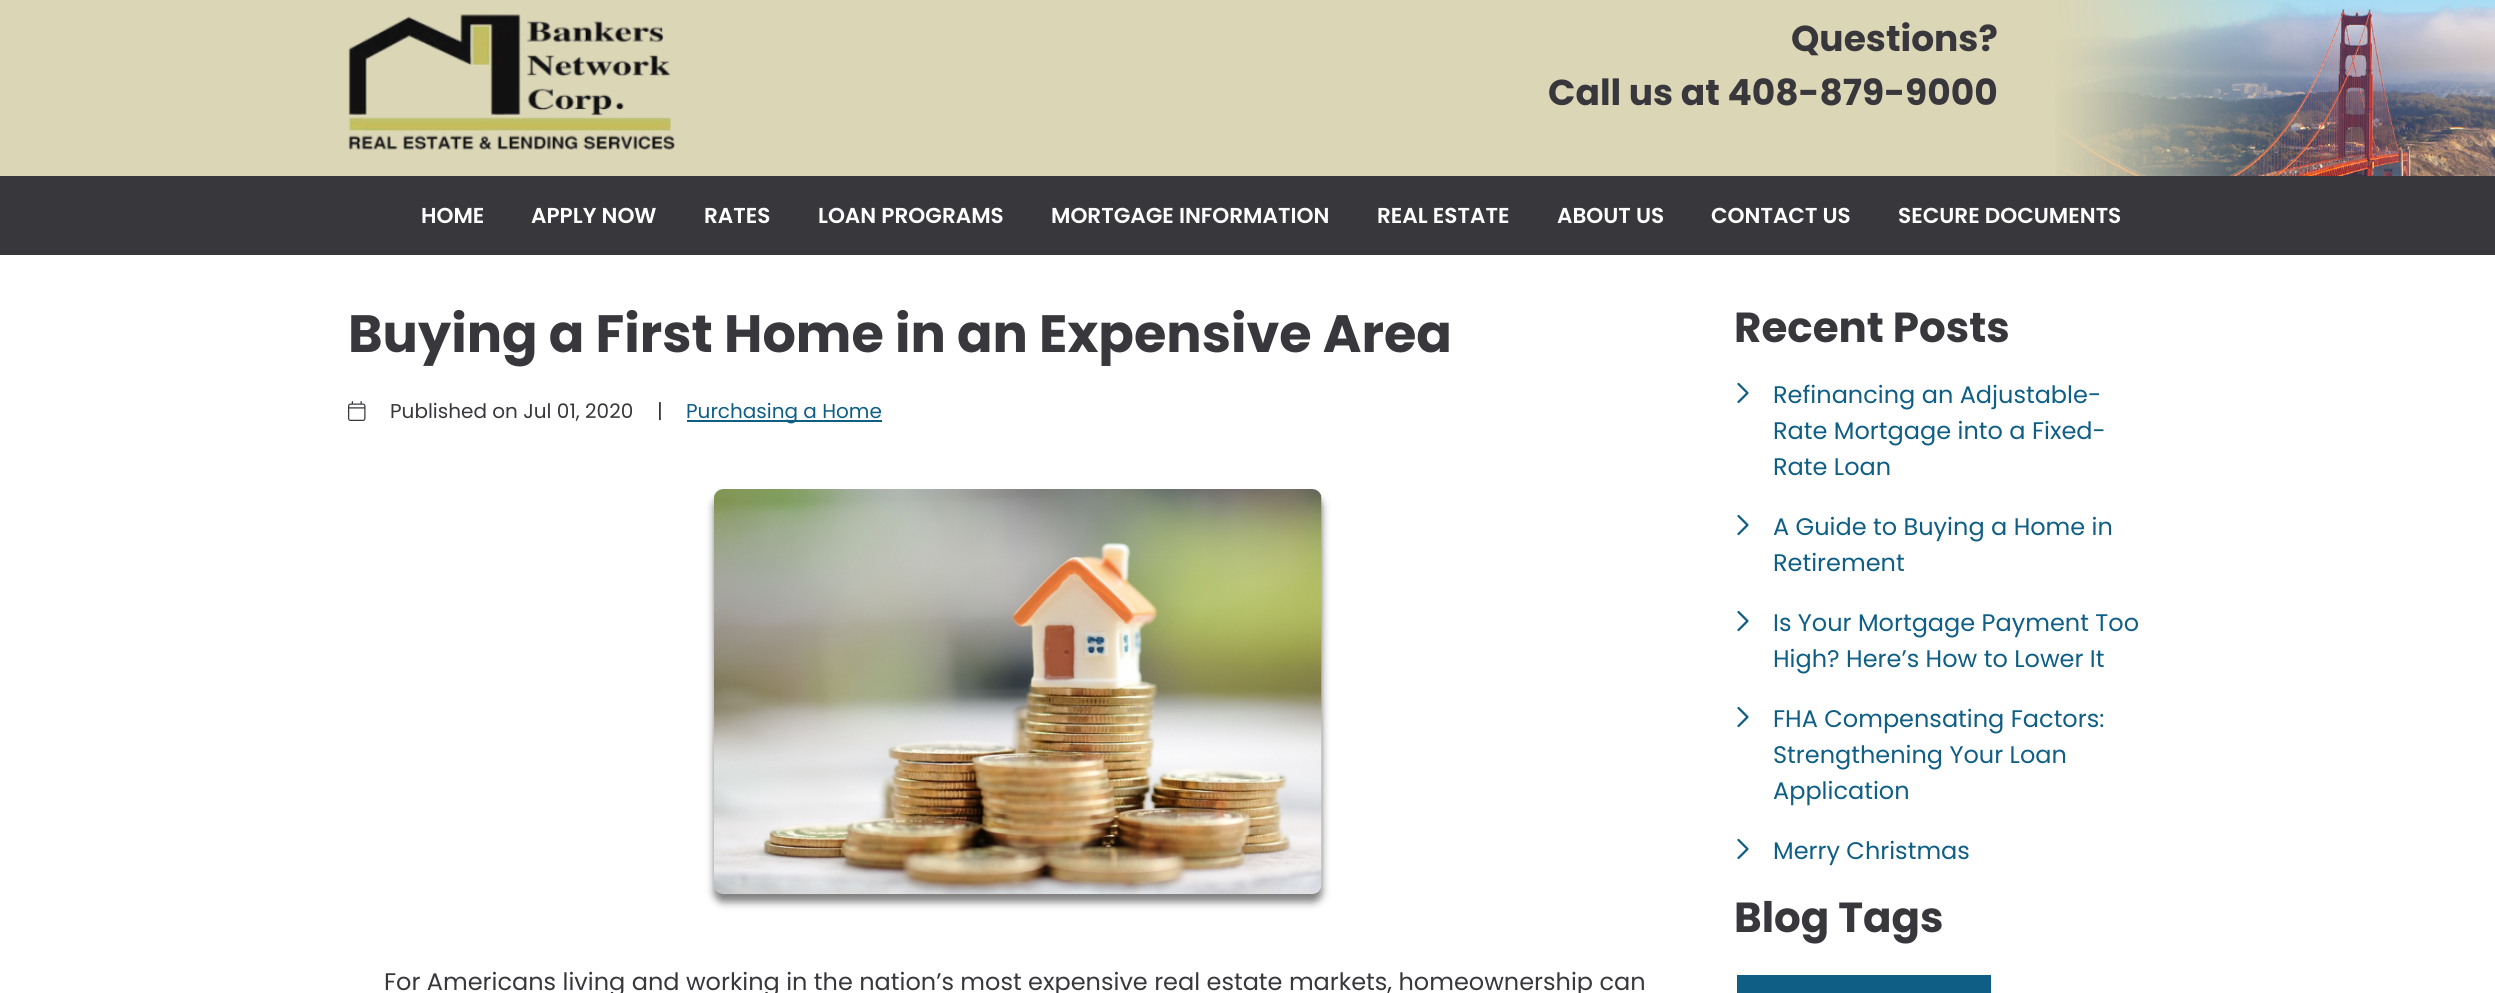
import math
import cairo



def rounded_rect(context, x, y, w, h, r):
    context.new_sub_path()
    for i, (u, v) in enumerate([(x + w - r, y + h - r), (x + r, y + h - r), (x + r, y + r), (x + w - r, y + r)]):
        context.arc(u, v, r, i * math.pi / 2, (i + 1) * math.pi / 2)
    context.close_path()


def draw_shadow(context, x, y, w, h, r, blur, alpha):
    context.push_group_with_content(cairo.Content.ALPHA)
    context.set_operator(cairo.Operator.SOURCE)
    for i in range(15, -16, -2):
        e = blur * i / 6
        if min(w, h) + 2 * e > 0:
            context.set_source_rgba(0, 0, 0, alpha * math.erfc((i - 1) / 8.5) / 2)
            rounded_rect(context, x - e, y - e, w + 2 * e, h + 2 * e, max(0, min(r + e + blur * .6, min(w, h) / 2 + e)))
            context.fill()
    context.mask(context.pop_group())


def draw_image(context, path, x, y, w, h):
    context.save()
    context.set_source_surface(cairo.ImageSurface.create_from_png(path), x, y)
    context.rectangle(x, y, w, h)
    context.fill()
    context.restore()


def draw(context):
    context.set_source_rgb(1, 1, 1)
    context.paint()
    context.set_source_rgb(219 / 255, 214 / 255, 181 / 255)
    context.rectangle(0, 0, 2328, 176)
    context.fill()
    draw_image(context, "images/1.png", 2055, 0, 440, 176)
    draw_image(context, "images/2.png", 348, 14, 327, 136)
    context.set_source_rgb(56 / 255, 55 / 255, 60 / 255)
    context.rectangle(0, 176, 2495, 79)
    context.fill()
    draw_image(context, "images/3.png", 348, 401, 18, 20)
    context.set_source_rgb(14 / 255, 94 / 255, 134 / 255)
    context.rectangle(687, 420, 195, 2)
    context.fill()
    context.set_source_rgb(0, 0, 0)
    draw_shadow(context, 714, 497, 608, 405, 9, 4, 0.5)
    draw_image(context, "images/4.png", 714, 489, 608, 405)
    draw_image(context, "images/5.png", 1737, 382, 12, 22)
    draw_image(context, "images/5.png", 1737, 514, 12, 22)
    draw_image(context, "images/5.png", 1737, 610, 12, 22)
    draw_image(context, "images/5.png", 1737, 706, 12, 22)
    draw_image(context, "images/5.png", 1737, 838, 12, 22)
    context.set_source_rgb(14 / 255, 94 / 255, 134 / 255)
    context.rectangle(1737, 975, 254, 18)
    context.fill()
    context.select_font_face("Poppins", cairo.FontSlant.NORMAL, cairo.FontWeight.BOLD)
    context.set_font_size(36)
    context.set_source_rgb(56 / 255, 55 / 255, 60 / 255)
    context.move_to(1791, 51)
    context.show_text("Questions?")
    context.move_to(1548, 105)
    context.show_text("Call us at 408-879-9000")
    context.select_font_face("Poppins SemiBold")
    context.set_font_size(21.6)
    context.set_source_rgb(1, 1, 1)
    context.move_to(421, 223)
    context.show_text("HOME")
    context.move_to(531, 223)
    context.show_text("APPLY NOW")
    context.move_to(704, 223)
    context.show_text("RATES")
    context.move_to(818, 223)
    context.show_text("LOAN PROGRAMS")
    context.move_to(1051, 223)
    context.show_text("MORTGAGE INFORMATION")
    context.move_to(1377, 223)
    context.show_text("REAL ESTATE")
    context.move_to(1557, 223)
    context.show_text("ABOUT US")
    context.move_to(1711, 223)
    context.show_text("CONTACT US")
    context.move_to(1898, 223)
    context.show_text("SECURE DOCUMENTS")
    context.select_font_face("Poppins", cairo.FontSlant.NORMAL, cairo.FontWeight.BOLD)
    context.set_font_size(52.5)
    context.set_source_rgb(56 / 255, 55 / 255, 60 / 255)
    context.move_to(348, 352)
    context.show_text("Buying a First Home in an Expensive Area")
    context.select_font_face("Poppins")
    context.set_font_size(20)
    context.move_to(390, 418)
    context.show_text("Published on Jul 01, 2020")
    context.move_to(657, 418)
    context.show_text("|")
    context.set_source_rgb(14 / 255, 94 / 255, 134 / 255)
    context.move_to(686, 418)
    context.show_text("Purchasing a Home")
    context.set_font_size(24)
    context.set_source_rgb(56 / 255, 55 / 255, 60 / 255)
    context.move_to(384, 990)
    context.show_text("For Americans living and working in the nation’s most expensive real estate markets, homeownership can")
    context.select_font_face("Poppins", cairo.FontSlant.NORMAL, cairo.FontWeight.BOLD)
    context.set_font_size(42)
    context.move_to(1734, 342)
    context.show_text("Recent Posts")
    context.select_font_face("Poppins")
    context.set_font_size(24)
    context.set_source_rgb(14 / 255, 94 / 255, 134 / 255)
    context.move_to(1773, 403)
    context.show_text("Refinancing an Adjustable-")
    context.move_to(1773, 439)
    context.show_text("Rate Mortgage into a Fixed-")
    context.move_to(1773, 475)
    context.show_text("Rate Loan")
    context.move_to(1773, 535)
    context.show_text("A Guide to Buying a Home in")
    context.move_to(1773, 571)
    context.show_text("Retirement")
    context.move_to(1773, 631)
    context.show_text("Is Your Mortgage Payment Too")
    context.move_to(1773, 667)
    context.show_text("High? Here’s How to Lower It")
    context.move_to(1773, 727)
    context.show_text("FHA Compensating Factors:")
    context.move_to(1773, 763)
    context.show_text("Strengthening Your Loan")
    context.move_to(1773, 799)
    context.show_text("Application")
    context.move_to(1773, 859)
    context.show_text("Merry Christmas")
    context.select_font_face("Poppins", cairo.FontSlant.NORMAL, cairo.FontWeight.BOLD)
    context.set_font_size(42)
    context.set_source_rgb(56 / 255, 55 / 255, 60 / 255)
    context.move_to(1734, 932)
    context.show_text("Blog Tags")


surface = cairo.ImageSurface(cairo.Format.RGB24, 2495, 993)
context = cairo.Context(surface)
options = cairo.FontOptions()
options.set_hint_metrics(cairo.HintMetrics.OFF)
options.set_hint_style(cairo.HintStyle.NONE)
context.set_font_options(options)
context.set_miter_limit(4)
draw(context)
surface.write_to_png("out.png")
